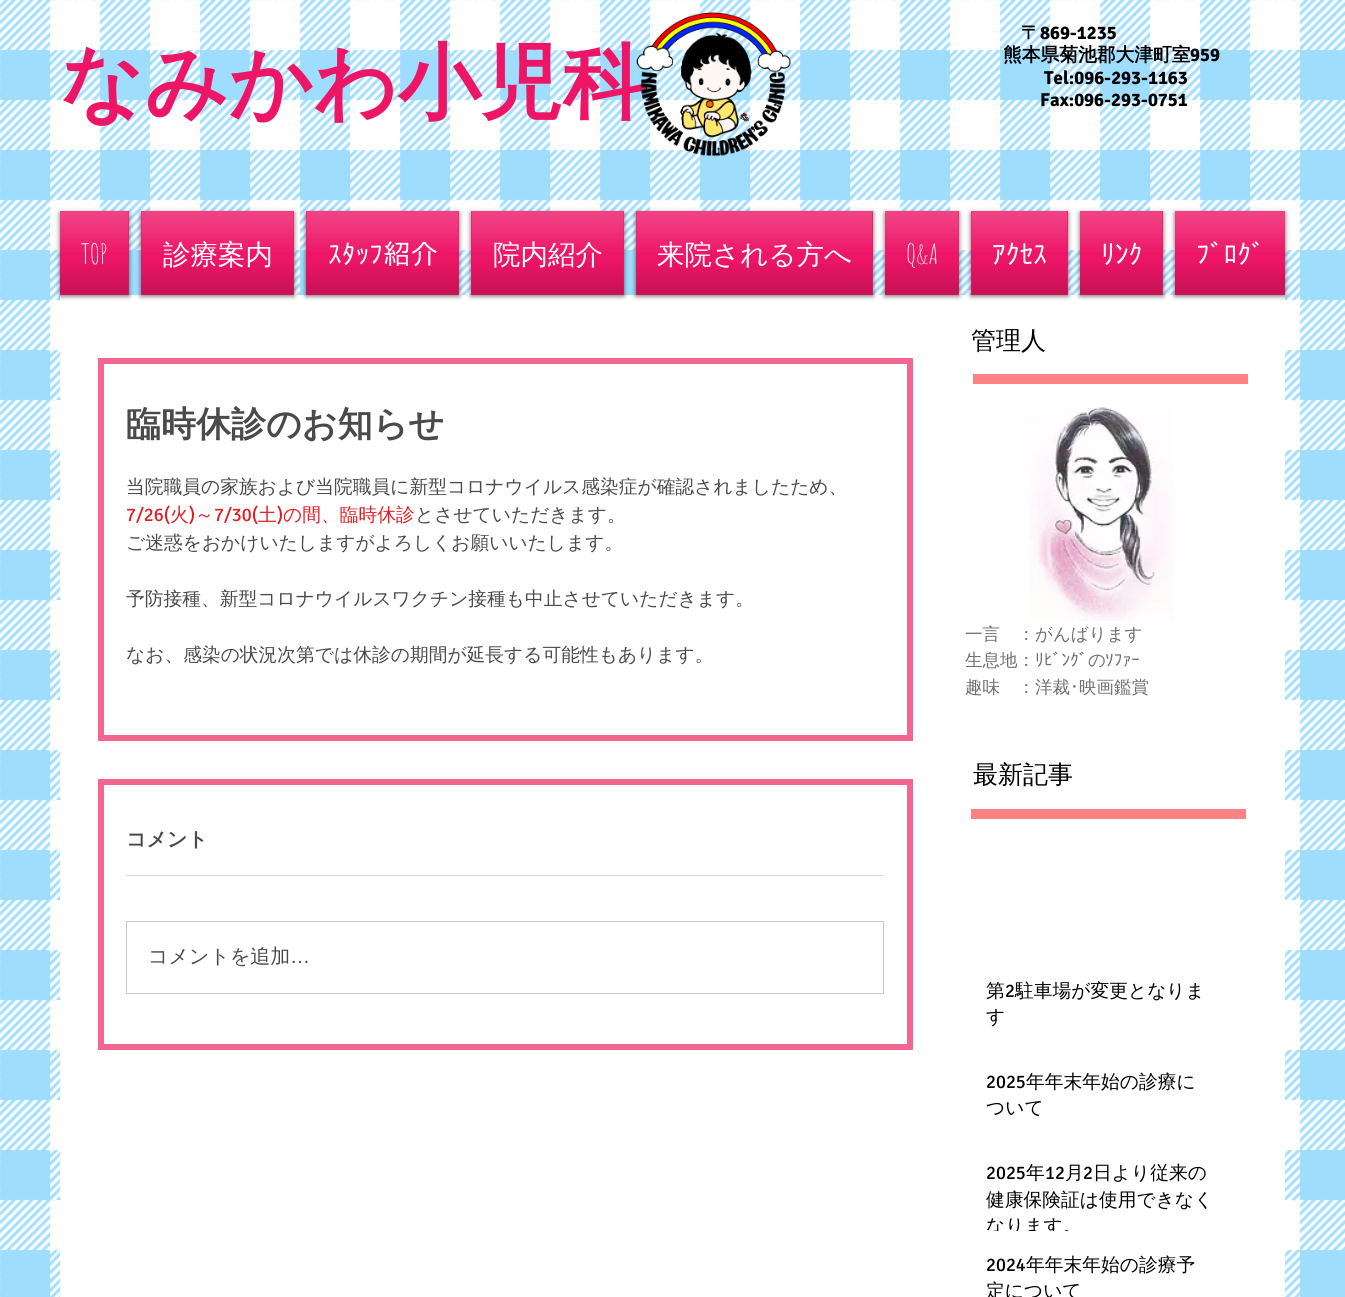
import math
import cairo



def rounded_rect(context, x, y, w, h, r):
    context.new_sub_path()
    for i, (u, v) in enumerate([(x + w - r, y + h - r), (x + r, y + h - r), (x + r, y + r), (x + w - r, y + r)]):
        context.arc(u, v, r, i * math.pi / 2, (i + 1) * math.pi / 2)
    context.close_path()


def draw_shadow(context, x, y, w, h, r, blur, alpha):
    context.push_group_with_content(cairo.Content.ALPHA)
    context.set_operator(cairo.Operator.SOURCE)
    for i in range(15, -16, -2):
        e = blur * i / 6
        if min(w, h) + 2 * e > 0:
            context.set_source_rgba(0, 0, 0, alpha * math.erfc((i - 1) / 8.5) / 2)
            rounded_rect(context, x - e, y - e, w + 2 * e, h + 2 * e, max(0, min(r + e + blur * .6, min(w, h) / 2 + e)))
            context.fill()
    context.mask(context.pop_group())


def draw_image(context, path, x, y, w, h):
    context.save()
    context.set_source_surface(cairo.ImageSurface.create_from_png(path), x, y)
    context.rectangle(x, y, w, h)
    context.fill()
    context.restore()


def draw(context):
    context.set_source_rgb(1, 1, 1)
    context.paint()
    draw_image(context, "images/1.png", 0, 0, 1345, 1297)
    context.set_source_rgb(1, 1, 1)
    context.rectangle(60, 295, 1225, 1002)
    context.fill()
    context.set_source_rgb(0, 0, 0)
    draw_shadow(context, 60, 213, 69, 83, 0, 2.5, 0.6)
    context.set_source_rgb(237 / 255, 21 / 255, 102 / 255)
    context.rectangle(60, 211, 69, 84)
    context.fill()
    draw_image(context, "images/3.png", 60, 211, 69, 41)
    draw_image(context, "images/4.png", 60, 263, 69, 32)
    context.set_source_rgb(0, 0, 0)
    draw_shadow(context, 141, 213, 153, 83, 0, 2.5, 0.6)
    context.set_source_rgb(237 / 255, 21 / 255, 102 / 255)
    context.rectangle(141, 211, 153, 84)
    context.fill()
    draw_image(context, "images/5.png", 141, 211, 153, 41)
    draw_image(context, "images/6.png", 141, 263, 153, 32)
    context.set_source_rgb(0, 0, 0)
    draw_shadow(context, 306, 213, 153, 83, 0, 2.5, 0.6)
    context.set_source_rgb(237 / 255, 21 / 255, 102 / 255)
    context.rectangle(306, 211, 153, 84)
    context.fill()
    draw_image(context, "images/5.png", 306, 211, 153, 41)
    draw_image(context, "images/6.png", 306, 263, 153, 32)
    context.set_source_rgb(0, 0, 0)
    draw_shadow(context, 471, 213, 153, 83, 0, 2.5, 0.6)
    context.set_source_rgb(237 / 255, 21 / 255, 102 / 255)
    context.rectangle(471, 211, 153, 84)
    context.fill()
    draw_image(context, "images/5.png", 471, 211, 153, 41)
    draw_image(context, "images/6.png", 471, 263, 153, 32)
    context.set_source_rgb(0, 0, 0)
    draw_shadow(context, 636, 213, 237, 83, 0, 2.5, 0.6)
    context.set_source_rgb(237 / 255, 21 / 255, 102 / 255)
    context.rectangle(636, 211, 237, 84)
    context.fill()
    draw_image(context, "images/7.png", 636, 211, 237, 41)
    draw_image(context, "images/8.png", 636, 263, 237, 32)
    context.set_source_rgb(0, 0, 0)
    draw_shadow(context, 885, 213, 74, 83, 0, 2.5, 0.6)
    context.set_source_rgb(237 / 255, 21 / 255, 102 / 255)
    context.rectangle(885, 211, 74, 84)
    context.fill()
    draw_image(context, "images/9.png", 885, 211, 74, 41)
    draw_image(context, "images/10.png", 885, 263, 74, 32)
    context.set_source_rgb(0, 0, 0)
    draw_shadow(context, 971, 213, 97, 83, 0, 2.5, 0.6)
    context.set_source_rgb(237 / 255, 21 / 255, 102 / 255)
    context.rectangle(971, 211, 97, 84)
    context.fill()
    draw_image(context, "images/11.png", 971, 211, 97, 41)
    draw_image(context, "images/12.png", 971, 263, 97, 32)
    context.set_source_rgb(0, 0, 0)
    draw_shadow(context, 1080, 213, 83, 83, 0, 2.5, 0.6)
    context.set_source_rgb(237 / 255, 21 / 255, 102 / 255)
    context.rectangle(1080, 211, 83, 84)
    context.fill()
    draw_image(context, "images/13.png", 1080, 211, 83, 41)
    draw_image(context, "images/14.png", 1080, 263, 83, 32)
    context.set_source_rgb(0, 0, 0)
    draw_shadow(context, 1175, 213, 110, 83, 0, 2.5, 0.6)
    context.set_source_rgb(237 / 255, 21 / 255, 102 / 255)
    context.rectangle(1175, 211, 110, 84)
    context.fill()
    draw_image(context, "images/15.png", 1175, 211, 110, 41)
    draw_image(context, "images/16.png", 1175, 263, 110, 32)
    context.set_source_rgb(1, 130 / 255, 130 / 255)
    context.rectangle(973, 374, 275, 10)
    context.fill()
    context.rectangle(101, 361, 809, 377)
    context.set_source_rgb(242 / 255, 102 / 255, 143 / 255)
    context.set_line_width(6)
    context.stroke()
    context.rectangle(101, 782, 809, 265)
    context.stroke()
    context.set_source_rgb(219 / 255, 219 / 255, 219 / 255)
    context.rectangle(126, 875, 758, 1)
    context.fill()
    context.rectangle(126.5, 921.5, 757, 72)
    context.set_source_rgb(201 / 255, 201 / 255, 201 / 255)
    context.set_line_width(1)
    context.stroke()
    draw_image(context, "images/17.png", 1029, 407, 145, 214)
    context.set_source_rgb(1, 130 / 255, 130 / 255)
    context.rectangle(971, 809, 275, 10)
    context.fill()
    context.select_font_face("WenQuanYi Zen Hei", cairo.FontSlant.NORMAL, cairo.FontWeight.BOLD)
    context.set_font_size(82.5)
    context.set_source_rgb(237 / 255, 21 / 255, 102 / 255)
    context.move_to(60, 111)
    context.show_text("なみかわ小児科")
    draw_image(context, "images/2.png", 636, 12, 155, 145)
    context.set_font_size(18.75)
    context.set_source_rgb(0, 0, 0)
    context.move_to(1021, 39)
    context.show_text("〒")
    context.select_font_face("Signika", cairo.FontSlant.NORMAL, cairo.FontWeight.BOLD)
    context.move_to(1040, 39)
    context.show_text("869-1235")
    context.select_font_face("WenQuanYi Zen Hei", cairo.FontSlant.NORMAL, cairo.FontWeight.BOLD)
    context.move_to(1003, 61)
    context.show_text("熊本県菊池郡大津町室")
    context.select_font_face("Signika", cairo.FontSlant.NORMAL, cairo.FontWeight.BOLD)
    context.move_to(1190, 61)
    context.show_text("959")
    context.move_to(1044, 84)
    context.show_text("Tel:096-293-1163")
    context.move_to(1040, 106)
    context.show_text("Fax:096-293-0751")
    context.select_font_face("Amatic SC")
    context.set_font_size(27.5)
    context.set_source_rgb(1, 1, 1)
    context.move_to(81, 264)
    context.show_text("TOP")
    context.select_font_face("WenQuanYi Zen Hei Medium")
    context.move_to(163, 264)
    context.show_text("診療案内")
    context.select_font_face("IPAPGothic")
    context.move_to(328, 264)
    context.show_text("ｽﾀｯﾌ紹介")
    context.select_font_face("WenQuanYi Zen Hei Medium")
    context.move_to(493, 264)
    context.show_text("院内紹介")
    context.move_to(657, 264)
    context.show_text("来院される方へ")
    context.select_font_face("Amatic SC")
    context.move_to(906, 264)
    context.show_text("Q&A")
    context.select_font_face("IPAPGothic")
    context.move_to(992, 264)
    context.show_text("ｱｸｾｽ")
    context.move_to(1101, 264)
    context.show_text("ﾘﾝｸ")
    context.move_to(1196, 264)
    context.show_text("ﾌﾞﾛｸﾞ")
    context.select_font_face("WenQuanYi Zen Hei Medium")
    context.set_font_size(25)
    context.set_source_rgb(0, 0, 0)
    context.move_to(971, 349)
    context.show_text("管理人")
    context.select_font_face("WenQuanYi Zen Hei", cairo.FontSlant.NORMAL, cairo.FontWeight.BOLD)
    context.set_font_size(35)
    context.set_source_rgb(74 / 255, 74 / 255, 74 / 255)
    context.move_to(126, 436)
    context.show_text("臨時休診のお知らせ")
    context.select_font_face("WenQuanYi Zen Hei Medium")
    context.set_font_size(18.75)
    context.move_to(126, 493)
    context.show_text("当院職員の家族および当院職員に新型コロナウイルス感染症が確認されましたため、")
    context.select_font_face("Signika")
    context.set_source_rgb(226 / 255, 28 / 255, 33 / 255)
    context.move_to(126, 521)
    context.show_text("7/26(")
    context.select_font_face("WenQuanYi Zen Hei Medium")
    context.move_to(170, 521)
    context.show_text("火")
    context.select_font_face("Signika")
    context.move_to(189, 521)
    context.show_text(")")
    context.select_font_face("WenQuanYi Zen Hei Medium")
    context.move_to(195, 521)
    context.show_text("～")
    context.select_font_face("Signika")
    context.move_to(214, 521)
    context.show_text("7/30(")
    context.select_font_face("WenQuanYi Zen Hei Medium")
    context.move_to(258, 521)
    context.show_text("土")
    context.select_font_face("Signika")
    context.move_to(277, 521)
    context.show_text(")")
    context.select_font_face("WenQuanYi Zen Hei Medium")
    context.move_to(283, 521)
    context.show_text("の間、臨時休診")
    context.set_source_rgb(74 / 255, 74 / 255, 74 / 255)
    context.move_to(415, 521)
    context.show_text("とさせていただきます。")
    context.move_to(126, 549)
    context.show_text("ご迷惑をおかけいたしますがよろしくお願いいたします。")
    context.move_to(126, 605)
    context.show_text("予防接種、新型コロナウイルスワクチン接種も中止させていただきます。")
    context.move_to(126, 661)
    context.show_text("なお、感染の状況次第では休診の期間が延長する可能性もあります。")
    context.select_font_face("WenQuanYi Zen Hei", cairo.FontSlant.NORMAL, cairo.FontWeight.BOLD)
    context.set_font_size(20)
    context.move_to(126, 846)
    context.show_text("コメント")
    context.select_font_face("WenQuanYi Zen Hei Medium")
    context.move_to(148, 963)
    context.show_text("コメントを追加")
    context.select_font_face("Liberation Sans")
    context.move_to(290, 963)
    context.show_text("…")
    context.select_font_face("WenQuanYi Zen Hei Medium")
    context.set_font_size(17.5)
    context.set_source_rgb(113 / 255, 112 / 255, 112 / 255)
    context.move_to(965, 640)
    context.show_text("一言　：がんばります")
    context.move_to(965, 666)
    context.show_text("生息地：")
    context.select_font_face("IPAPGothic")
    context.move_to(1035, 666)
    context.show_text("ﾘﾋﾞﾝｸﾞ")
    context.select_font_face("WenQuanYi Zen Hei Medium")
    context.move_to(1088, 666)
    context.show_text("の")
    context.select_font_face("IPAPGothic")
    context.move_to(1105, 666)
    context.show_text("ｿﾌｧｰ")
    context.select_font_face("WenQuanYi Zen Hei Medium")
    context.move_to(965, 693)
    context.show_text("趣味　：洋裁")
    context.select_font_face("IPAPGothic")
    context.move_to(1070, 693)
    context.show_text("･")
    context.select_font_face("WenQuanYi Zen Hei Medium")
    context.move_to(1079, 693)
    context.show_text("映画鑑賞")
    context.set_font_size(25)
    context.set_source_rgb(0, 0, 0)
    context.move_to(973, 783)
    context.show_text("最新記事")
    context.set_font_size(18.75)
    context.move_to(986, 997)
    context.show_text("第")
    context.select_font_face("Signika")
    context.move_to(1005, 997)
    context.show_text("2")
    context.select_font_face("WenQuanYi Zen Hei Medium")
    context.move_to(1015, 997)
    context.show_text("駐車場が変更となりま")
    context.move_to(986, 1023)
    context.show_text("す")
    context.select_font_face("Signika")
    context.move_to(986, 1088)
    context.show_text("2025")
    context.select_font_face("WenQuanYi Zen Hei Medium")
    context.move_to(1026, 1088)
    context.show_text("年年末年始の診療に")
    context.move_to(986, 1114)
    context.show_text("ついて")
    context.select_font_face("Signika")
    context.move_to(986, 1179)
    context.show_text("2025")
    context.select_font_face("WenQuanYi Zen Hei Medium")
    context.move_to(1026, 1179)
    context.show_text("年")
    context.select_font_face("Signika")
    context.move_to(1045, 1179)
    context.show_text("12")
    context.select_font_face("WenQuanYi Zen Hei Medium")
    context.move_to(1065, 1179)
    context.show_text("月")
    context.select_font_face("Signika")
    context.move_to(1083, 1179)
    context.show_text("2")
    context.select_font_face("WenQuanYi Zen Hei Medium")
    context.move_to(1093, 1179)
    context.show_text("日より従来の")
    context.move_to(986, 1206)
    context.show_text("健康保険証は使用できなく")
    context.save()
    context.rectangle(986, 1161, 228, 70)
    context.clip()
    context.move_to(986, 1232)
    context.show_text("なります。")
    context.restore()
    context.select_font_face("Signika")
    context.move_to(986, 1271)
    context.show_text("2024")
    context.select_font_face("WenQuanYi Zen Hei Medium")
    context.move_to(1026, 1271)
    context.show_text("年年末年始の診療予")
    context.move_to(986, 1297)
    context.show_text("定について")


surface = cairo.ImageSurface(cairo.Format.RGB24, 1345, 1297)
context = cairo.Context(surface)
options = cairo.FontOptions()
options.set_hint_metrics(cairo.HintMetrics.OFF)
options.set_hint_style(cairo.HintStyle.NONE)
context.set_font_options(options)
context.set_miter_limit(4)
draw(context)
surface.write_to_png("out.png")
